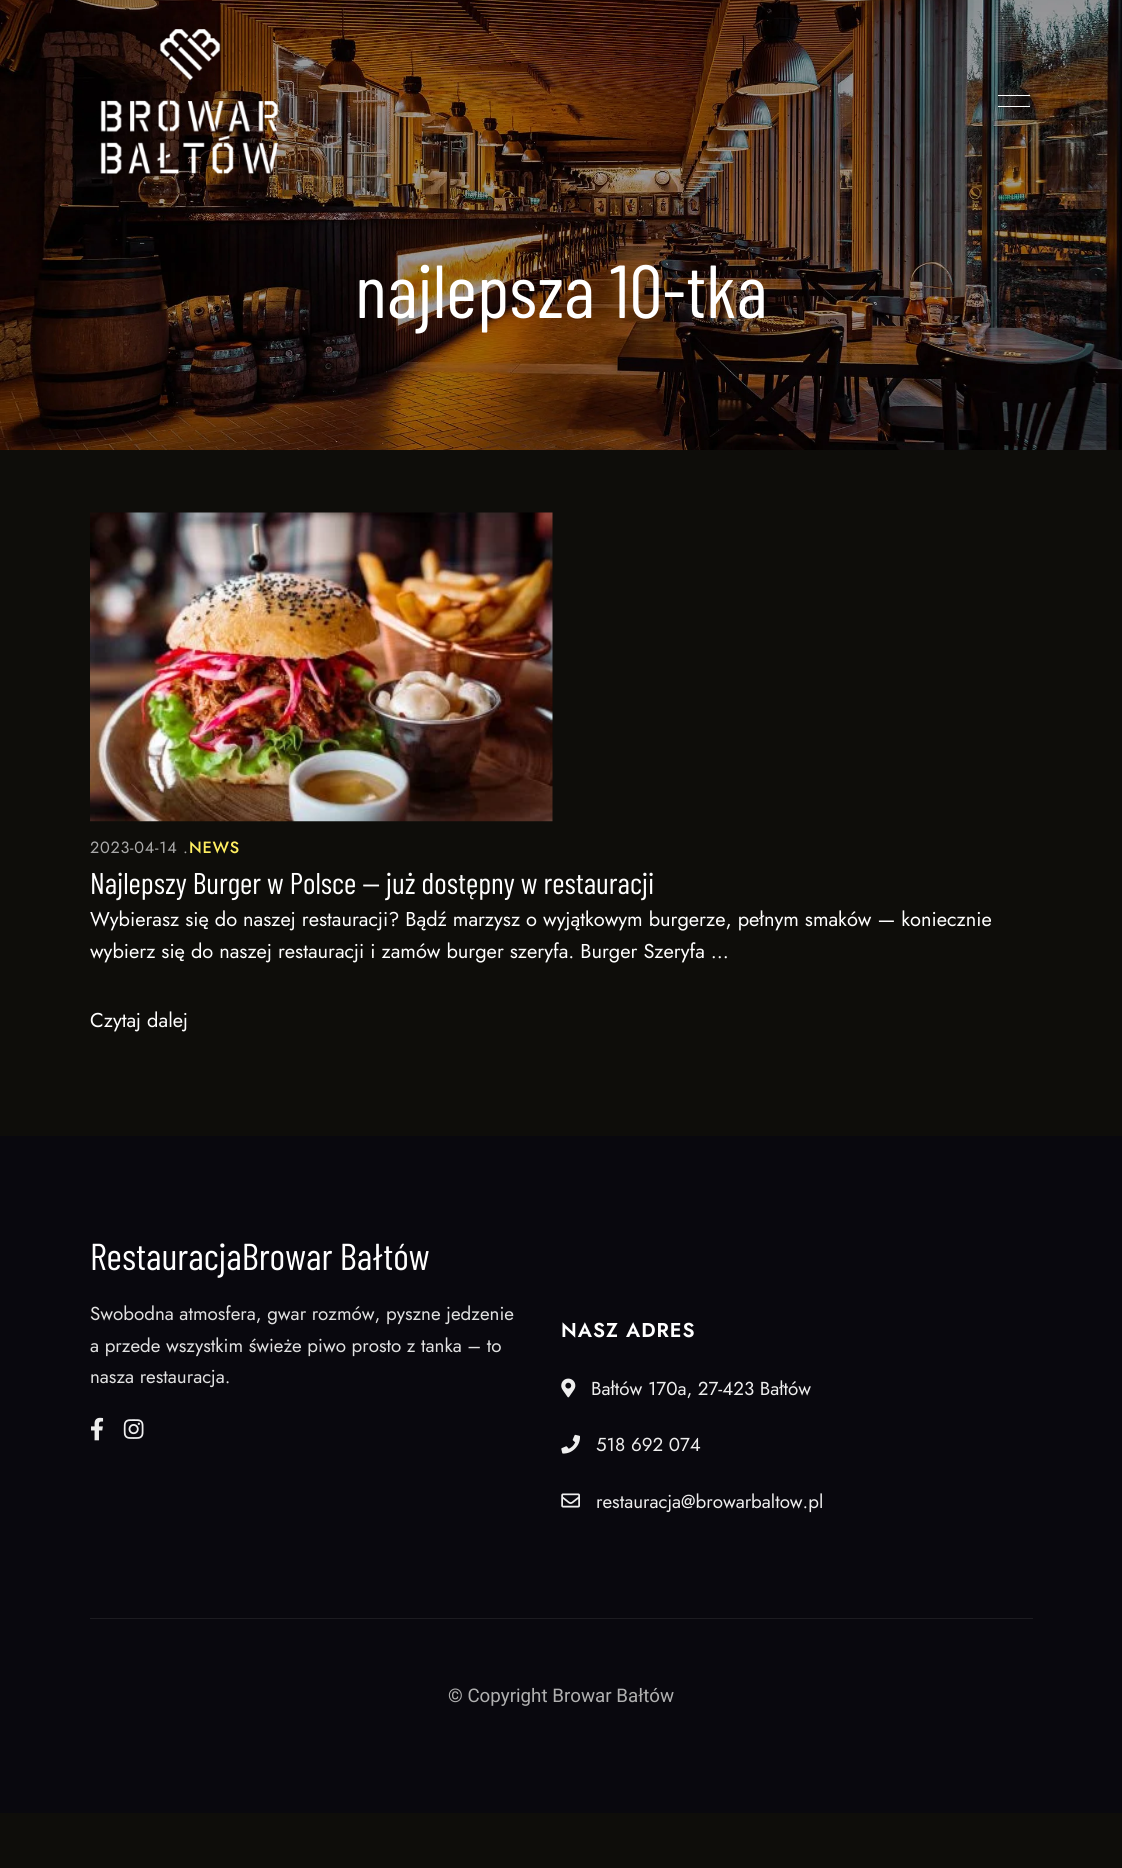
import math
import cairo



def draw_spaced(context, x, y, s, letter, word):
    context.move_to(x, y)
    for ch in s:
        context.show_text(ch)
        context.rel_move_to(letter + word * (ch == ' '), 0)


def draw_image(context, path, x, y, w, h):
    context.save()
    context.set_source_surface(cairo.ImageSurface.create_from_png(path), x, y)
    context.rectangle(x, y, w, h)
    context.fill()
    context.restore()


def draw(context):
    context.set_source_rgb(14 / 255, 13 / 255, 10 / 255)
    context.paint()
    draw_image(context, "images/2.png", 0, 0, 1122, 450)
    draw_image(context, "images/1.png", 100, 29, 179, 145)
    context.set_source_rgb(1, 1, 1)
    context.rectangle(998, 95, 32, 1)
    context.fill()
    context.rectangle(998, 106, 32, 1)
    context.fill()
    draw_image(context, "images/3.png", 90, 512, 463, 310)
    context.set_source_rgb(9 / 255, 8 / 255, 14 / 255)
    context.rectangle(0, 1136, 1122, 677)
    context.fill()
    draw_image(context, "images/4.png", 91, 1417, 13, 24)
    draw_image(context, "images/5.png", 123, 1419, 21, 20)
    draw_image(context, "images/6.png", 561, 1378, 15, 20)
    draw_image(context, "images/7.png", 561, 1434, 19, 20)
    draw_image(context, "images/8.png", 561, 1493, 19, 15)
    context.set_source_rgb(29 / 255, 28 / 255, 33 / 255)
    context.rectangle(90, 1618, 943, 1)
    context.fill()
    context.select_font_face("Barlow Condensed")
    context.set_font_size(75)
    context.set_source_rgb(1, 1, 1)
    context.move_to(355, 318)
    context.show_text("najlepsza 10-tka")
    context.select_font_face("Jost")
    context.set_font_size(16.25)
    context.set_source_rgb(170 / 255, 170 / 255, 170 / 255)
    draw_spaced(context, 90, 853, "2023-04-14 .", 0.75, 0)
    context.select_font_face("Jost Medium")
    context.set_source_rgb(1, 239 / 255, 96 / 255)
    draw_spaced(context, 189, 853, "NEWS", 0.75, 0)
    context.select_font_face("Barlow Condensed")
    context.set_font_size(30)
    context.set_source_rgb(1, 1, 1)
    context.move_to(90, 894)
    context.show_text("Najlepszy Burger w Polsce — już dostępny w restauracji")
    context.select_font_face("Jost")
    context.set_font_size(20)
    context.move_to(90, 926)
    context.show_text("Wybierasz się do naszej restauracji? Bądź marzysz o wyjątkowym burgerze, pełnym smaków — koniecznie")
    context.move_to(90, 958)
    context.show_text("wybierz się do naszej restauracji i zamów burger szeryfa. Burger Szeryfa …")
    context.move_to(90, 1027)
    context.show_text("Czytaj dalej")
    context.select_font_face("Barlow Condensed")
    context.set_font_size(37.5)
    context.move_to(90, 1270)
    context.show_text("RestauracjaBrowar Bałtów")
    context.select_font_face("Jost")
    context.set_font_size(18.75)
    context.set_source_rgb(225 / 255, 225 / 255, 225 / 255)
    context.move_to(90, 1320)
    context.show_text("Swobodna atmosfera, gwar rozmów, pyszne jedzenie")
    context.move_to(90, 1352)
    context.show_text("a przede wszystkim świeże piwo prosto z tanka – to")
    context.move_to(90, 1383)
    context.show_text("nasza restauracja.")
    context.select_font_face("Jost SemiBold")
    context.set_font_size(20)
    context.set_source_rgb(1, 1, 1)
    draw_spaced(context, 561, 1337, "NASZ ADRES", 1, 0)
    context.select_font_face("Jost")
    context.set_font_size(18.75)
    context.set_source_rgb(238 / 255, 238 / 255, 238 / 255)
    context.move_to(591, 1395)
    context.show_text("Bałtów 170a, 27-423 Bałtów")
    context.move_to(596, 1451)
    context.show_text("518 692 074")
    context.move_to(596, 1508)
    context.show_text("restauracja@browarbaltow.pl")
    context.select_font_face("Roboto")
    context.set_source_rgb(176 / 255, 176 / 255, 176 / 255)
    context.move_to(448, 1702)
    context.show_text("© Copyright Browar Bałtów")


surface = cairo.ImageSurface(cairo.Format.RGB24, 1122, 1868)
context = cairo.Context(surface)
options = cairo.FontOptions()
options.set_hint_metrics(cairo.HintMetrics.OFF)
options.set_hint_style(cairo.HintStyle.NONE)
context.set_font_options(options)
context.set_miter_limit(4)
draw(context)
surface.write_to_png("out.png")
